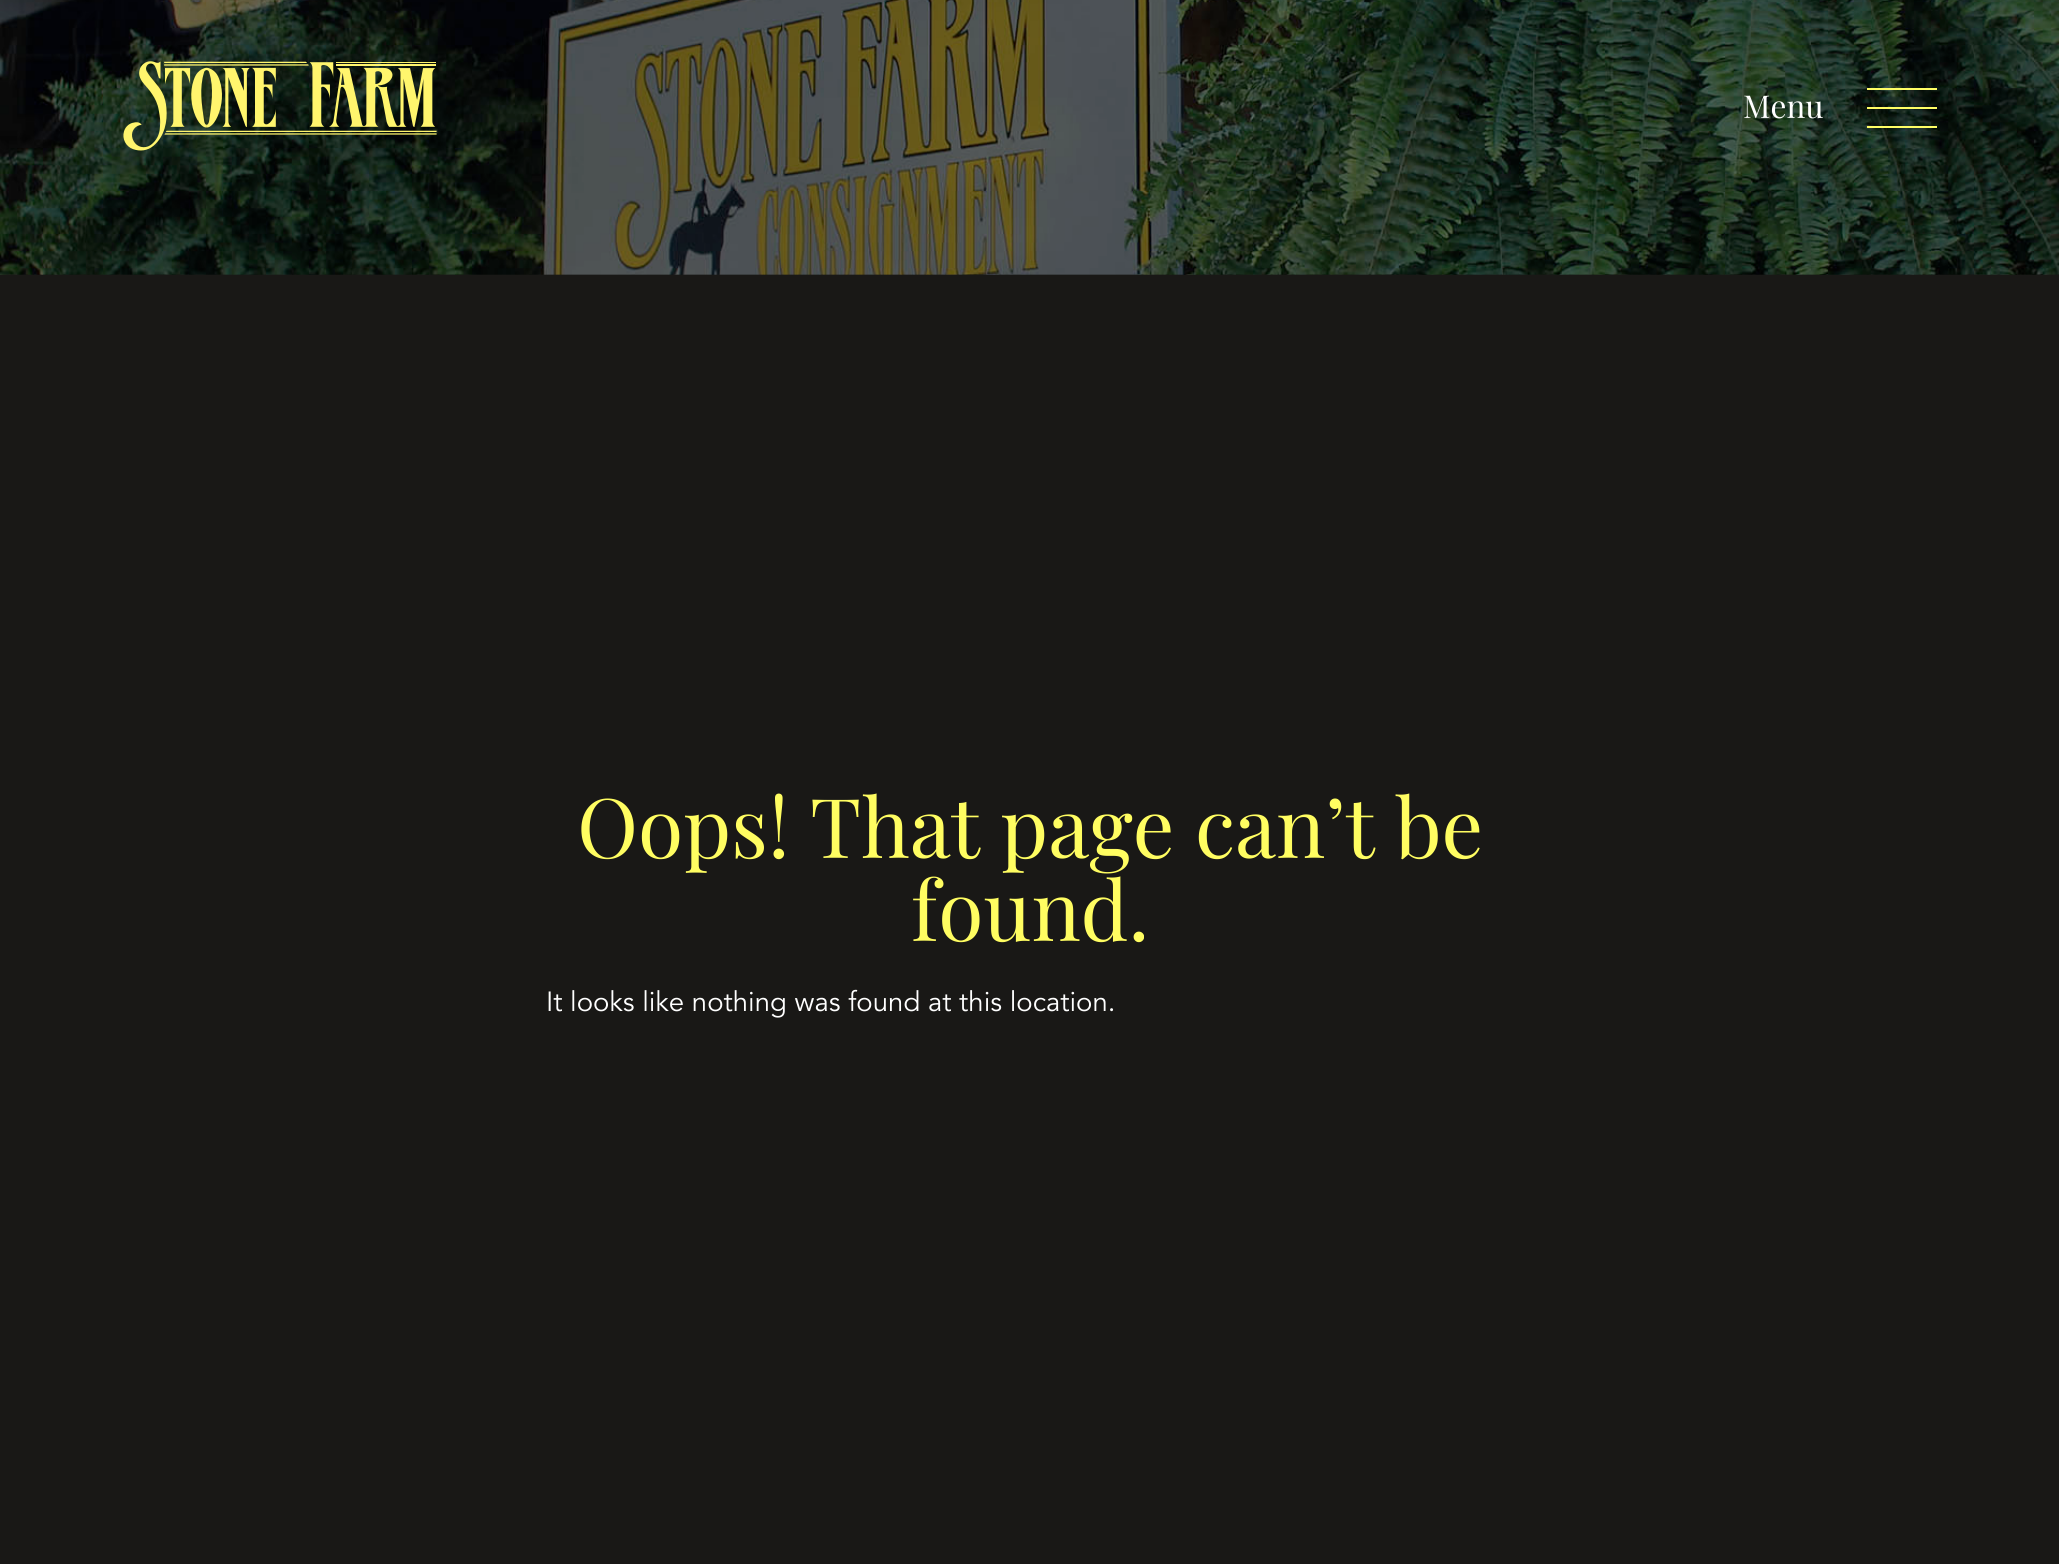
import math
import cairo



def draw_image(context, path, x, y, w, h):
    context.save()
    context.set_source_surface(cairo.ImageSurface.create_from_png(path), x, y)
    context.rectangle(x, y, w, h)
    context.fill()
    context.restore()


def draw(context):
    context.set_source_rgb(25 / 255, 24 / 255, 22 / 255)
    context.paint()
    draw_image(context, "images/1.png", 0, 0, 2059, 275)
    draw_image(context, "images/2.png", 123, 61, 314, 90)
    context.set_source_rgb(1, 254 / 255, 101 / 255)
    context.rectangle(1867, 88, 70, 2)
    context.fill()
    context.rectangle(1867, 107, 70, 2)
    context.fill()
    context.rectangle(1867, 126, 70, 2)
    context.fill()
    context.select_font_face("Playfair Display")
    context.set_font_size(31.5)
    context.set_source_rgb(1, 1, 1)
    context.move_to(1743, 118)
    context.show_text("Menu")
    context.set_font_size(82.4)
    context.set_source_rgb(1, 253 / 255, 97 / 255)
    context.move_to(577, 858)
    context.show_text("Oops! That page can’t be")
    context.move_to(911, 941)
    context.show_text("found.")
    context.select_font_face("Avenir")
    context.set_font_size(27.6)
    context.set_source_rgb(1, 1, 1)
    context.move_to(546, 1011)
    context.show_text("It looks like nothing was found at this location.")


surface = cairo.ImageSurface(cairo.Format.RGB24, 2059, 1564)
context = cairo.Context(surface)
options = cairo.FontOptions()
options.set_hint_metrics(cairo.HintMetrics.OFF)
options.set_hint_style(cairo.HintStyle.NONE)
context.set_font_options(options)
context.set_miter_limit(4)
draw(context)
surface.write_to_png("out.png")
